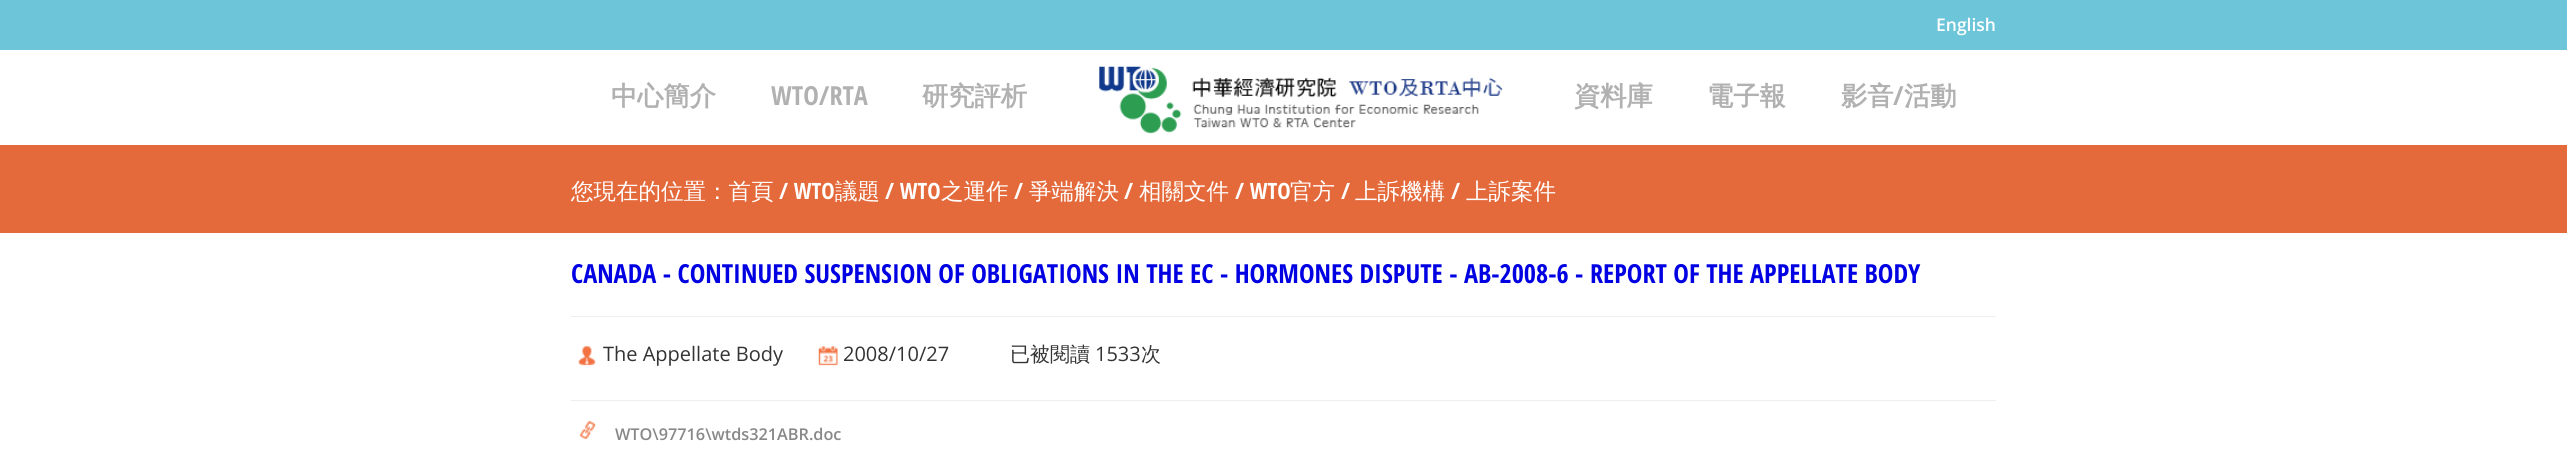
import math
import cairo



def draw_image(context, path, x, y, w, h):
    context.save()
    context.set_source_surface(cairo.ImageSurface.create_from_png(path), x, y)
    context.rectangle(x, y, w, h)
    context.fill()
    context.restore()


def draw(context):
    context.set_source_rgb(1, 1, 1)
    context.paint()
    context.set_source_rgb(108 / 255, 197 / 255, 217 / 255)
    context.rectangle(0, 0, 2567, 50)
    context.fill()
    draw_image(context, "images/1.png", 1099, 66, 404, 68)
    context.set_source_rgb(228 / 255, 106 / 255, 59 / 255)
    context.rectangle(0, 145, 2567, 88)
    context.fill()
    context.set_source_rgb(238 / 255, 238 / 255, 238 / 255)
    context.rectangle(571, 316, 1425, 1)
    context.fill()
    draw_image(context, "images/2.png", 578, 346, 18, 20)
    draw_image(context, "images/3.png", 818, 346, 20, 20)
    context.rectangle(571, 400, 1425, 1)
    context.fill()
    draw_image(context, "images/4.png", 579, 421, 17, 18)
    context.select_font_face("Open Sans SemiBold")
    context.set_font_size(17.5)
    context.set_source_rgb(1, 1, 1)
    context.move_to(1936, 31)
    context.show_text("English")
    context.select_font_face("WenQuanYi Zen Hei", cairo.FontSlant.NORMAL, cairo.FontWeight.BOLD)
    context.set_font_size(26.25)
    context.set_source_rgb(177 / 255, 177 / 255, 177 / 255)
    context.move_to(611, 105)
    context.show_text("中心簡介")
    context.select_font_face("Open Sans Condensed", cairo.FontSlant.NORMAL, cairo.FontWeight.BOLD)
    context.move_to(771, 105)
    context.show_text("WTO/RTA")
    context.select_font_face("WenQuanYi Zen Hei", cairo.FontSlant.NORMAL, cairo.FontWeight.BOLD)
    context.move_to(922, 105)
    context.show_text("研究評析")
    context.move_to(1574, 105)
    context.show_text("資料庫")
    context.move_to(1707, 105)
    context.show_text("電子報")
    context.move_to(1841, 105)
    context.show_text("影音")
    context.select_font_face("Open Sans Condensed", cairo.FontSlant.NORMAL, cairo.FontWeight.BOLD)
    context.move_to(1893, 105)
    context.show_text("/")
    context.select_font_face("WenQuanYi Zen Hei", cairo.FontSlant.NORMAL, cairo.FontWeight.BOLD)
    context.move_to(1904, 105)
    context.show_text("活動")
    context.select_font_face("WenQuanYi Zen Hei Medium")
    context.set_font_size(22.5)
    context.set_source_rgb(1, 1, 1)
    context.move_to(571, 199)
    context.show_text("您現在的位置：首頁")
    context.select_font_face("Open Sans Condensed", cairo.FontSlant.NORMAL, cairo.FontWeight.BOLD)
    context.move_to(779, 199)
    context.show_text("/ WTO")
    context.select_font_face("WenQuanYi Zen Hei Medium")
    context.move_to(835, 199)
    context.show_text("議題")
    context.select_font_face("Open Sans Condensed", cairo.FontSlant.NORMAL, cairo.FontWeight.BOLD)
    context.move_to(885, 199)
    context.show_text("/ WTO")
    context.select_font_face("WenQuanYi Zen Hei Medium")
    context.move_to(941, 199)
    context.show_text("之運作")
    context.select_font_face("Open Sans Condensed", cairo.FontSlant.NORMAL, cairo.FontWeight.BOLD)
    context.move_to(1014, 199)
    context.show_text("/")
    context.select_font_face("WenQuanYi Zen Hei Medium")
    context.move_to(1029, 199)
    context.show_text("爭端解決")
    context.select_font_face("Open Sans Condensed", cairo.FontSlant.NORMAL, cairo.FontWeight.BOLD)
    context.move_to(1124, 199)
    context.show_text("/")
    context.select_font_face("WenQuanYi Zen Hei Medium")
    context.move_to(1139, 199)
    context.show_text("相關文件")
    context.select_font_face("Open Sans Condensed", cairo.FontSlant.NORMAL, cairo.FontWeight.BOLD)
    context.move_to(1235, 199)
    context.show_text("/ WTO")
    context.select_font_face("WenQuanYi Zen Hei Medium")
    context.move_to(1290, 199)
    context.show_text("官方")
    context.select_font_face("Open Sans Condensed", cairo.FontSlant.NORMAL, cairo.FontWeight.BOLD)
    context.move_to(1341, 199)
    context.show_text("/")
    context.select_font_face("WenQuanYi Zen Hei Medium")
    context.move_to(1355, 199)
    context.show_text("上訴機構")
    context.select_font_face("Open Sans Condensed", cairo.FontSlant.NORMAL, cairo.FontWeight.BOLD)
    context.move_to(1451, 199)
    context.show_text("/")
    context.select_font_face("WenQuanYi Zen Hei Medium")
    context.move_to(1466, 199)
    context.show_text("上訴案件")
    context.select_font_face("Open Sans Condensed", cairo.FontSlant.NORMAL, cairo.FontWeight.BOLD)
    context.set_font_size(26.25)
    context.set_source_rgb(0, 0, 227 / 255)
    context.move_to(571, 283)
    context.show_text("CANADA - CONTINUED SUSPENSION OF OBLIGATIONS IN THE EC - HORMONES DISPUTE - AB-2008-6 - REPORT OF THE APPELLATE BODY")
    context.select_font_face("Open Sans")
    context.set_font_size(20)
    context.set_source_rgb(51 / 255, 51 / 255, 51 / 255)
    context.move_to(603, 361)
    context.show_text("The Appellate Body")
    context.move_to(843, 361)
    context.show_text("2008/10/27")
    context.select_font_face("WenQuanYi Zen Hei Medium")
    context.move_to(1010, 361)
    context.show_text("已被閱讀")
    context.select_font_face("Open Sans")
    context.move_to(1095, 361)
    context.show_text("1533")
    context.select_font_face("WenQuanYi Zen Hei Medium")
    context.move_to(1141, 361)
    context.show_text("次")
    context.select_font_face("Open Sans SemiBold")
    context.set_font_size(16.25)
    context.set_source_rgb(136 / 255, 136 / 255, 136 / 255)
    context.move_to(615, 440)
    context.show_text("WTO\\97716\\wtds321ABR.doc")


surface = cairo.ImageSurface(cairo.Format.RGB24, 2567, 449)
context = cairo.Context(surface)
options = cairo.FontOptions()
options.set_hint_metrics(cairo.HintMetrics.OFF)
options.set_hint_style(cairo.HintStyle.NONE)
context.set_font_options(options)
context.set_miter_limit(4)
draw(context)
surface.write_to_png("out.png")
